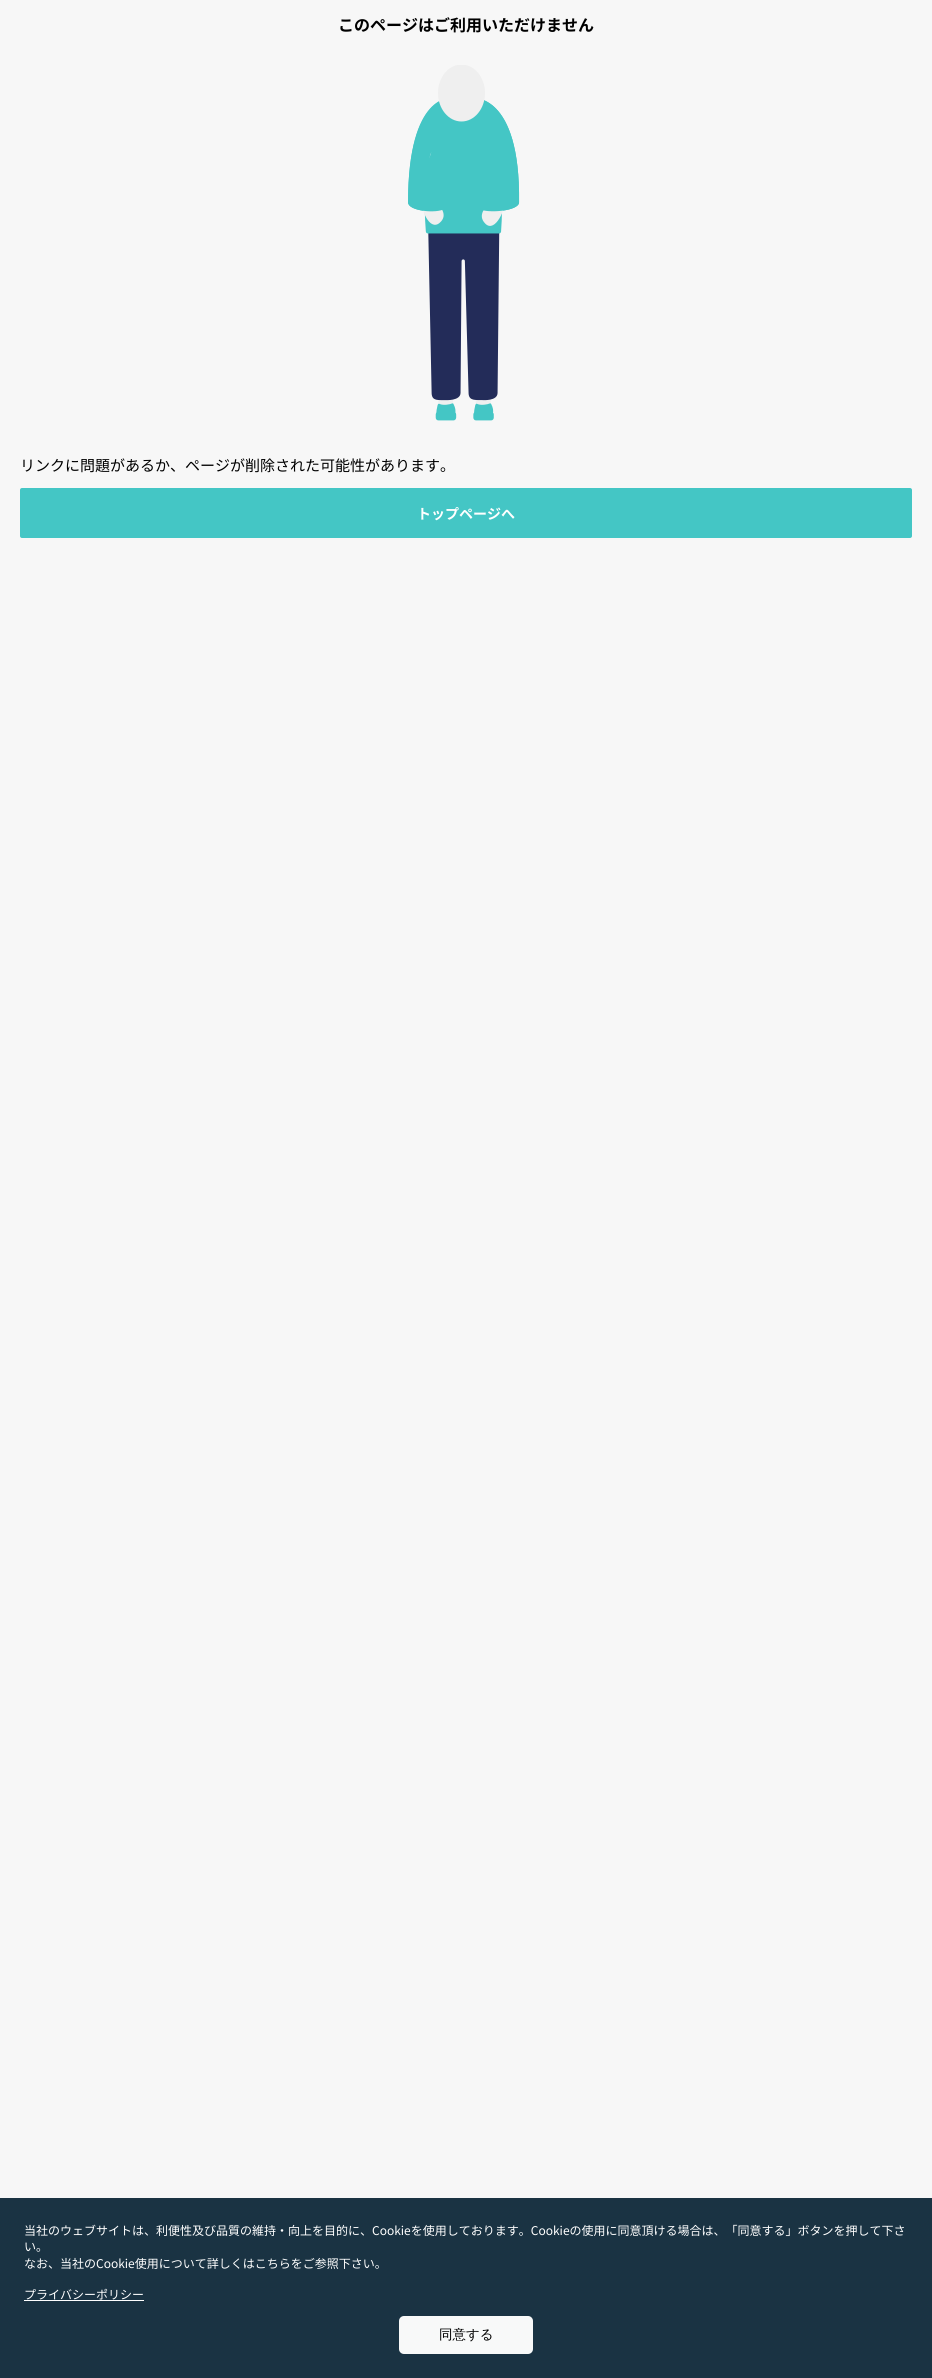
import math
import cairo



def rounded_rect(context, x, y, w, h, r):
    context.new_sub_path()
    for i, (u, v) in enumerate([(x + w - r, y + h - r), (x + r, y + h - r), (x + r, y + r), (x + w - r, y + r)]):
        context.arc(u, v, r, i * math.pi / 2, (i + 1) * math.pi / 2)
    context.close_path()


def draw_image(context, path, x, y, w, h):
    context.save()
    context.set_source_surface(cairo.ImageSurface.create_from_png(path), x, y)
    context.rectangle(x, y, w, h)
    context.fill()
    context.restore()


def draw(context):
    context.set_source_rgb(247 / 255, 247 / 255, 247 / 255)
    context.paint()
    draw_image(context, "images/1.png", 408, 65, 112, 356)
    context.set_source_rgb(68 / 255, 198 / 255, 197 / 255)
    rounded_rect(context, 20, 488, 892, 50, 2)
    context.fill()
    context.set_source_rgb(26 / 255, 51 / 255, 67 / 255)
    context.rectangle(0, 2198, 932, 180)
    context.fill()
    context.set_source_rgb(1, 1, 1)
    context.rectangle(24, 2300, 120, 1)
    context.fill()
    context.set_source_rgb(248 / 255, 249 / 255, 249 / 255)
    rounded_rect(context, 399, 2316, 134, 38, 5)
    context.fill()
    context.select_font_face("Noto Sans JP", cairo.FontSlant.NORMAL, cairo.FontWeight.BOLD)
    context.set_font_size(16)
    context.set_source_rgb(0, 0, 0)
    context.move_to(338, 31)
    context.show_text("このページはご利用いただけません")
    context.select_font_face("Noto Sans JP")
    context.set_font_size(15)
    context.move_to(20, 471)
    context.show_text("リンクに問題があるか、ページが削除された可能性があります。")
    context.select_font_face("Noto Sans JP", cairo.FontSlant.NORMAL, cairo.FontWeight.BOLD)
    context.set_font_size(14)
    context.set_source_rgb(1, 1, 1)
    context.move_to(417, 519)
    context.show_text("トップページへ")
    context.select_font_face("Noto Sans JP")
    context.set_font_size(12)
    context.move_to(24, 2235)
    context.show_text("当社のウェブサイトは、利便性及び品質の維持・向上を目的に、Cookieを使用しております。Cookieの使用に同意頂ける場合は、「同意する」ボタンを押して下さ")
    context.move_to(24, 2251)
    context.show_text("い。")
    context.move_to(24, 2268)
    context.show_text("なお、当社のCookie使用について詳しくはこちらをご参照下さい。")
    context.move_to(24, 2299)
    context.show_text("プライバシーポリシー")
    context.select_font_face("WenQuanYi Zen Hei Medium")
    context.set_font_size(13.5)
    context.set_source_rgb(0, 0, 0)
    context.move_to(439, 2339)
    context.show_text("同意する")


surface = cairo.ImageSurface(cairo.Format.RGB24, 932, 2378)
context = cairo.Context(surface)
options = cairo.FontOptions()
options.set_hint_metrics(cairo.HintMetrics.OFF)
options.set_hint_style(cairo.HintStyle.NONE)
context.set_font_options(options)
context.set_miter_limit(4)
draw(context)
surface.write_to_png("out.png")
